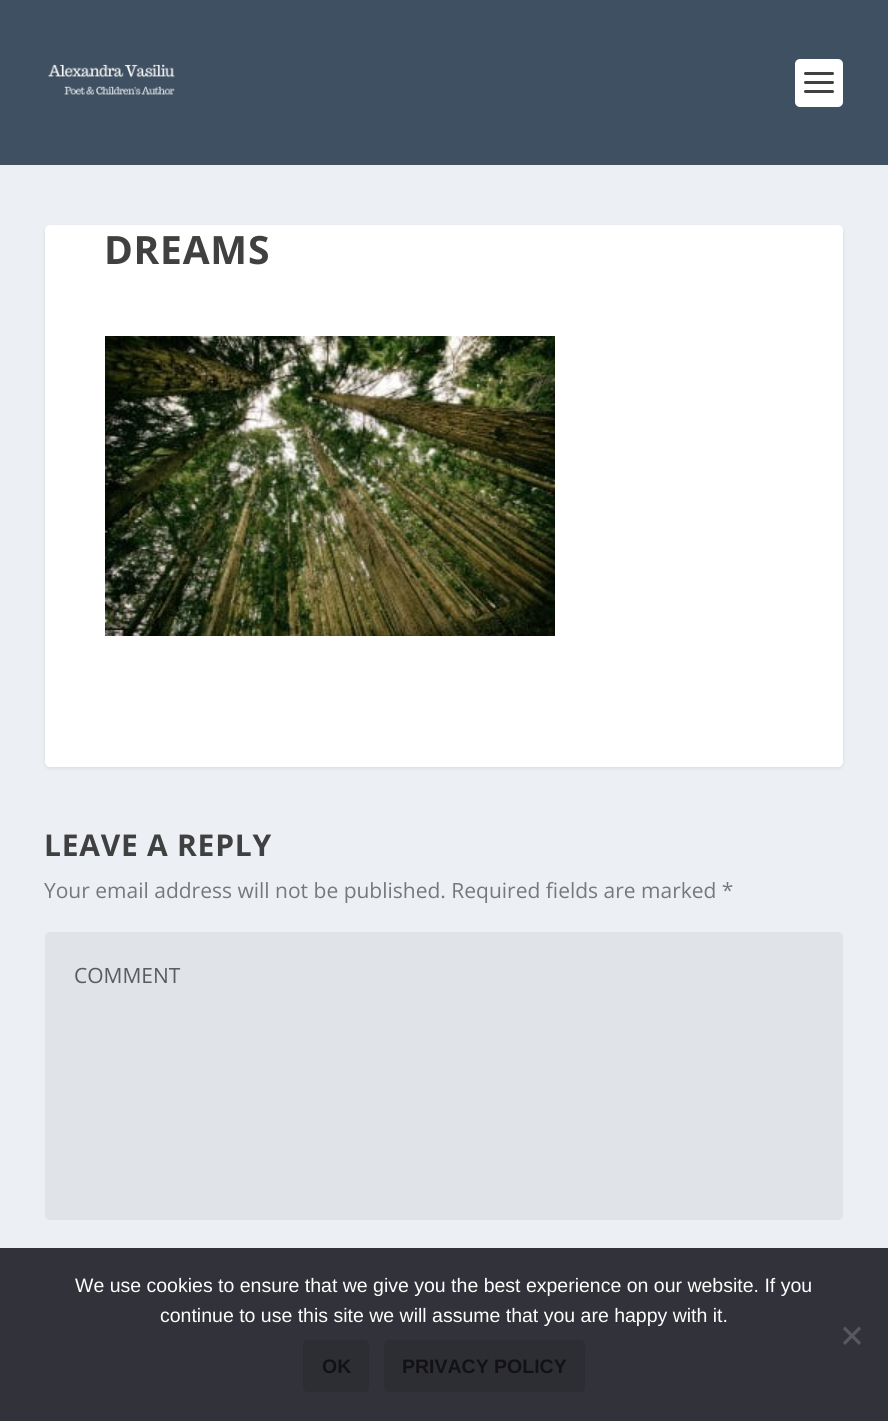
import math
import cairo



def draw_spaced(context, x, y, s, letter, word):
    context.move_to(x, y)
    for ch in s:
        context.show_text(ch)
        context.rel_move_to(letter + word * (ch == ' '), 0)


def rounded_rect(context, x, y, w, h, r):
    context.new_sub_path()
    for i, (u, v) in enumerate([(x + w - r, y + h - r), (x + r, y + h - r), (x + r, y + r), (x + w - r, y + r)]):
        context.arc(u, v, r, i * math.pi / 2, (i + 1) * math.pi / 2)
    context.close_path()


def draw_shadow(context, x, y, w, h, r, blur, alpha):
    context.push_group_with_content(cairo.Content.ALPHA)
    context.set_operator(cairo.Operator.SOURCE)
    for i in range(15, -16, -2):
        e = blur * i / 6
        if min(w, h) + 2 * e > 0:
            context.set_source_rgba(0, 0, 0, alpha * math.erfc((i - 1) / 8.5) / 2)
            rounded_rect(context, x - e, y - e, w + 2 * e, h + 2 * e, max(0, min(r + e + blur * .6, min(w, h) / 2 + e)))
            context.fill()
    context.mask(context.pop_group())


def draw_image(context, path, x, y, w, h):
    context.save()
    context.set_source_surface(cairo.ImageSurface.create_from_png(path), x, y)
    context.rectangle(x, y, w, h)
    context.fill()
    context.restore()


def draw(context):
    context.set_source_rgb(236 / 255, 240 / 255, 245 / 255)
    context.paint()
    context.set_source_rgb(62 / 255, 80 / 255, 98 / 255)
    context.rectangle(0, 0, 888, 165)
    context.fill()
    draw_image(context, "images/1.png", 47, 64, 128, 31)
    context.set_source_rgb(1, 1, 1)
    rounded_rect(context, 795, 59, 48, 48, 5)
    context.fill()
    context.set_source_rgb(64 / 255, 64 / 255, 64 / 255)
    rounded_rect(context, 804, 72, 30, 3, 1.5)
    context.fill()
    rounded_rect(context, 804, 81, 30, 3, 1.5)
    context.fill()
    rounded_rect(context, 804, 90, 30, 3, 1.5)
    context.fill()
    context.set_source_rgb(0, 0, 0)
    draw_shadow(context, 45, 227, 798, 541, 5, 2, 0.1)
    context.set_source_rgb(1, 1, 1)
    rounded_rect(context, 45, 225, 798, 542, 5)
    context.fill()
    draw_image(context, "images/2.png", 105, 336, 450, 300)
    context.set_source_rgb(224 / 255, 228 / 255, 232 / 255)
    rounded_rect(context, 45, 932, 798, 288, 5)
    context.fill()
    context.set_source_rgb(50 / 255, 50 / 255, 58 / 255)
    context.rectangle(0, 1248, 888, 173)
    context.fill()
    context.set_source_rgb(89 / 255, 89 / 255, 93 / 255)
    context.new_path()
    context.move_to(859, 1326.5)
    context.line_to(861, 1329)
    context.line_to(845, 1345)
    context.line_to(843, 1342.5)
    context.close_path()
    context.fill()
    context.new_path()
    context.move_to(843, 1329)
    context.line_to(845, 1326.5)
    context.line_to(861, 1342.5)
    context.line_to(859, 1345)
    context.close_path()
    context.fill()
    context.set_source_rgb(45 / 255, 45 / 255, 52 / 255)
    rounded_rect(context, 303, 1340, 66, 52, 5)
    context.fill()
    rounded_rect(context, 384, 1340, 201, 52, 5)
    context.fill()
    context.select_font_face("Open Sans", cairo.FontSlant.NORMAL, cairo.FontWeight.BOLD)
    context.set_font_size(39)
    context.set_source_rgb(64 / 255, 64 / 255, 64 / 255)
    draw_spaced(context, 104, 264, "DREAMS", 0.75, 0)
    context.set_font_size(30)
    draw_spaced(context, 44, 856, "LEAVE A REPLY", 0.75, 0)
    context.select_font_face("Open Sans")
    context.set_font_size(21)
    context.set_source_rgb(118 / 255, 120 / 255, 123 / 255)
    context.move_to(44, 898)
    context.show_text("Your email address will not be published. Required fields are marked *")
    context.set_source_rgb(90 / 255, 91 / 255, 93 / 255)
    context.move_to(74, 983)
    context.show_text("COMMENT")
    context.select_font_face("Liberation Sans")
    context.set_font_size(19.5)
    context.set_source_rgb(1, 1, 1)
    context.move_to(75, 1292)
    context.show_text("We use cookies to ensure that we give you the best experience on our website. If you")
    context.move_to(160, 1322)
    context.show_text("continue to use this site we will assume that you are happy with it.")
    context.select_font_face("Liberation Sans", cairo.FontSlant.NORMAL, cairo.FontWeight.BOLD)
    context.set_source_rgb(18 / 255, 18 / 255, 21 / 255)
    context.move_to(322, 1373)
    context.show_text("OK")
    context.move_to(402, 1373)
    context.show_text("PRIVACY POLICY")


surface = cairo.ImageSurface(cairo.Format.RGB24, 888, 1421)
context = cairo.Context(surface)
options = cairo.FontOptions()
options.set_hint_metrics(cairo.HintMetrics.OFF)
options.set_hint_style(cairo.HintStyle.NONE)
context.set_font_options(options)
context.set_miter_limit(4)
draw(context)
surface.write_to_png("out.png")
